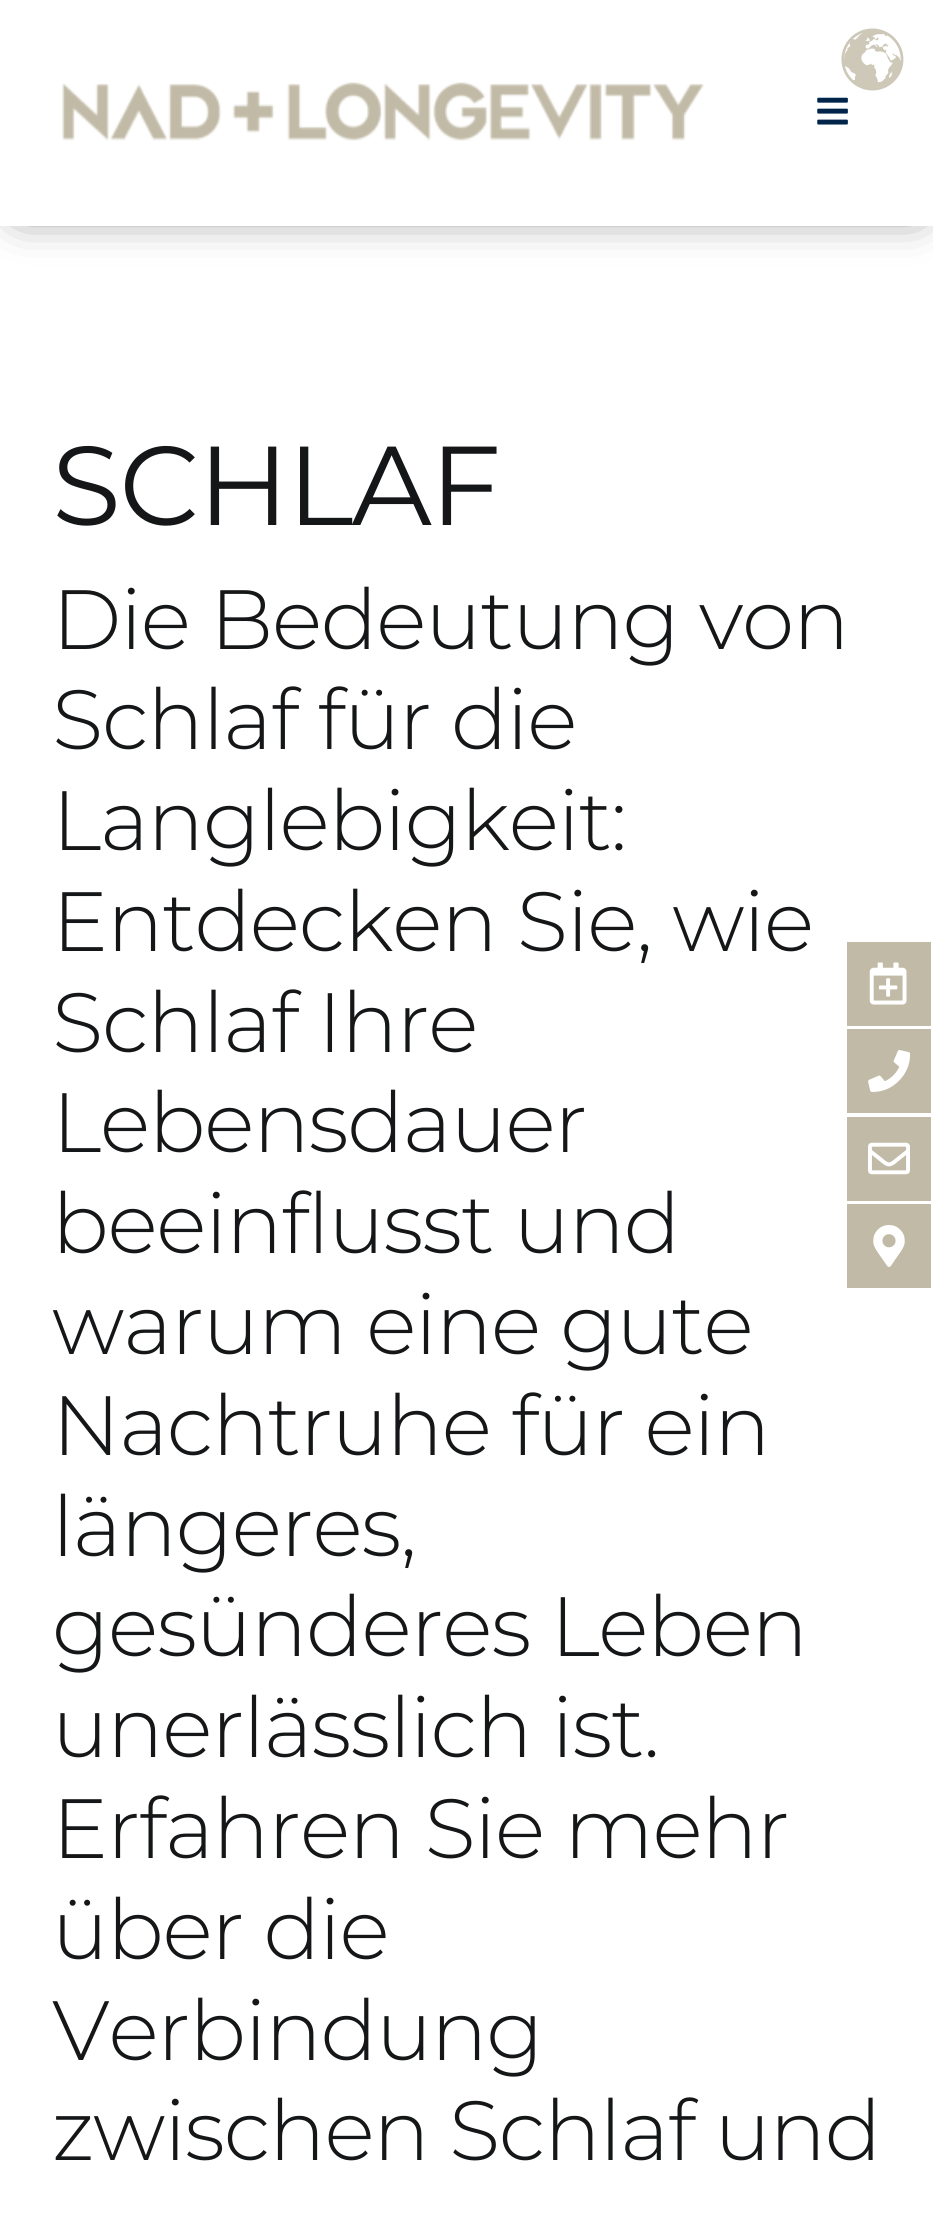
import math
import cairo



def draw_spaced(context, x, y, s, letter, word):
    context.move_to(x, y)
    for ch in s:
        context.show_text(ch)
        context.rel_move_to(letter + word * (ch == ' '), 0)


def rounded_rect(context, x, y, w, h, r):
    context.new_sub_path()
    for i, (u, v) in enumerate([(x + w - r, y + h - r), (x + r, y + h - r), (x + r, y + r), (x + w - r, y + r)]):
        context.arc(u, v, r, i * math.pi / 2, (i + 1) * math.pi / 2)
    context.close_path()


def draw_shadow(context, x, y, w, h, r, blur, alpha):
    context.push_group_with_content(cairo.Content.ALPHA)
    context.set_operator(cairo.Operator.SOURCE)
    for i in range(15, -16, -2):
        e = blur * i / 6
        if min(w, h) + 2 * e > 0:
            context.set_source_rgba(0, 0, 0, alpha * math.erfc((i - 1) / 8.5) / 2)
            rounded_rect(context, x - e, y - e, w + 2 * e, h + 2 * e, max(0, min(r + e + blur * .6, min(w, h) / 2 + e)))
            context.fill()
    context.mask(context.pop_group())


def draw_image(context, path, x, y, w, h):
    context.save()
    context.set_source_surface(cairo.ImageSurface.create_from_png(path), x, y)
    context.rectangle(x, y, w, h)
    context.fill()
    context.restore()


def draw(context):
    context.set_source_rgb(1, 1, 1)
    context.paint()
    context.save()
    context.set_fill_rule(cairo.FillRule.EVEN_ODD)
    context.new_path()
    context.move_to(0, 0)
    context.line_to(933, 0)
    context.line_to(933, 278)
    context.line_to(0, 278)
    context.close_path()
    context.move_to(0, 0)
    context.line_to(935, 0)
    context.line_to(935, 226)
    context.line_to(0, 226)
    context.close_path()
    context.clip()
    context.set_source_rgb(67 / 255, 69 / 255, 73 / 255)
    draw_shadow(context, 21, 21, 896, 187, 0, 23, 1)
    context.restore()
    draw_image(context, "images/1.png", 62, 82, 642, 59)
    draw_image(context, "images/2.png", 817, 97, 31, 28)
    draw_image(context, "images/3.png", 841, 28, 63, 63)
    context.set_source_rgb(193 / 255, 186 / 255, 166 / 255)
    context.rectangle(847, 942, 84, 84)
    context.fill()
    draw_image(context, "images/4.png", 869, 962, 38, 43)
    context.rectangle(847, 1029, 84, 84)
    context.fill()
    draw_image(context, "images/5.png", 868, 1050, 43, 42)
    context.rectangle(847, 1117, 84, 84)
    context.fill()
    draw_image(context, "images/6.png", 868, 1142, 42, 33)
    context.rectangle(847, 1204, 84, 84)
    context.fill()
    draw_image(context, "images/7.png", 873, 1225, 32, 42)
    context.select_font_face("Montserrat")
    context.set_font_size(112)
    context.set_source_rgb(20 / 255, 22 / 255, 23 / 255)
    draw_spaced(context, 52, 525, "SCHLAF", -1.75, 0)
    context.select_font_face("Montserrat Light")
    context.set_font_size(84)
    draw_spaced(context, 52, 649, "Die Bedeutung von", -1.25, 0)
    draw_spaced(context, 52, 749, "Schlaf für die", -1.25, 0)
    draw_spaced(context, 52, 850, "Langlebigkeit:", -1.25, 0)
    draw_spaced(context, 52, 951, "Entdecken Sie, wie", -1.25, 0)
    draw_spaced(context, 52, 1052, "Schlaf Ihre", -1.25, 0)
    draw_spaced(context, 52, 1152, "Lebensdauer", -1.25, 0)
    draw_spaced(context, 52, 1253, "beeinflusst und", -1.25, 0)
    draw_spaced(context, 52, 1354, "warum eine gute", -1.25, 0)
    draw_spaced(context, 52, 1455, "Nachtruhe für ein", -1.25, 0)
    draw_spaced(context, 52, 1556, "längeres,", -1.25, 0)
    draw_spaced(context, 52, 1656, "gesünderes Leben", -1.25, 0)
    draw_spaced(context, 52, 1757, "unerlässlich ist.", -1.25, 0)
    draw_spaced(context, 52, 1858, "Erfahren Sie mehr", -1.25, 0)
    draw_spaced(context, 52, 1959, "über die", -1.25, 0)
    draw_spaced(context, 52, 2060, "Verbindung", -1.25, 0)
    draw_spaced(context, 52, 2160, "zwischen Schlaf und", -1.25, 0)


surface = cairo.ImageSurface(cairo.Format.RGB24, 933, 2217)
context = cairo.Context(surface)
options = cairo.FontOptions()
options.set_hint_metrics(cairo.HintMetrics.OFF)
options.set_hint_style(cairo.HintStyle.NONE)
context.set_font_options(options)
context.set_miter_limit(4)
draw(context)
surface.write_to_png("out.png")
